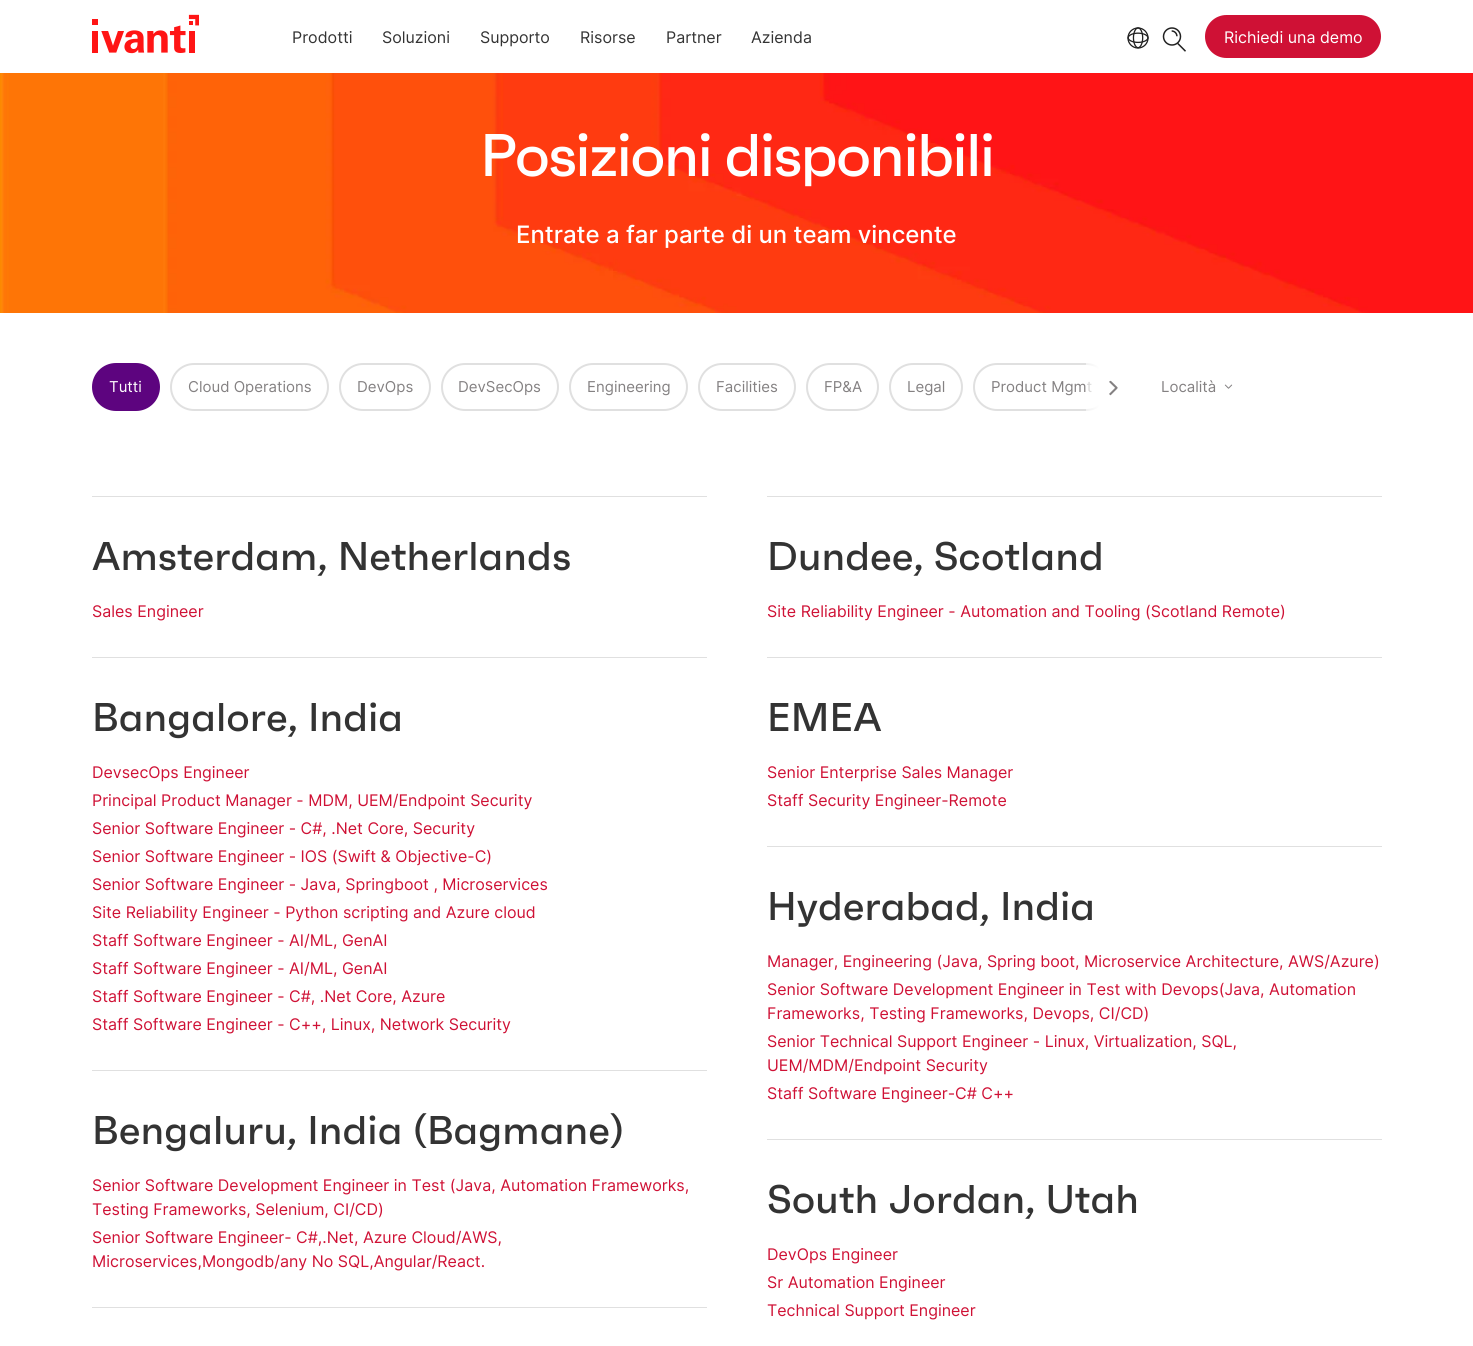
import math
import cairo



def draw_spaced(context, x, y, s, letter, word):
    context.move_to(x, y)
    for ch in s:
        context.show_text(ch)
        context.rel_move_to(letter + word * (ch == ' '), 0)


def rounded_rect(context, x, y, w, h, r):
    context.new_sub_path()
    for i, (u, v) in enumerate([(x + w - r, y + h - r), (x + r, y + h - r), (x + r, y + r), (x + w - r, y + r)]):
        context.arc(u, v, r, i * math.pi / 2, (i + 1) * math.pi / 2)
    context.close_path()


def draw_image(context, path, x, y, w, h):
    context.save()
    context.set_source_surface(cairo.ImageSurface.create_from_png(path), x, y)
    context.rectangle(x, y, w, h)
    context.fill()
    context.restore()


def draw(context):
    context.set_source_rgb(1, 1, 1)
    context.paint()
    draw_image(context, "images/1.png", 92, 14, 107, 40)
    draw_image(context, "images/2.png", 1127, 27, 22, 22)
    draw_image(context, "images/3.png", 1162, 27, 24, 25)
    context.set_source_rgb(207 / 255, 17 / 255, 53 / 255)
    rounded_rect(context, 1206, 16, 174, 41, 20.5)
    context.fill_preserve()
    context.stroke()
    draw_image(context, "images/4.png", 0, 73, 1473, 240)
    context.set_source_rgb(93 / 255, 4 / 255, 127 / 255)
    rounded_rect(context, 93, 364, 66, 46, 23)
    context.fill_preserve()
    context.stroke()
    rounded_rect(context, 171, 364, 157, 46, 23)
    context.set_source_rgb(224 / 255, 224 / 255, 224 / 255)
    context.stroke()
    rounded_rect(context, 340, 364, 90, 46, 23)
    context.stroke()
    rounded_rect(context, 442, 364, 116, 46, 23)
    context.stroke()
    rounded_rect(context, 570, 364, 117, 46, 23)
    context.stroke()
    rounded_rect(context, 699, 364, 96, 46, 23)
    context.stroke()
    rounded_rect(context, 807, 364, 71, 46, 23)
    context.stroke()
    rounded_rect(context, 890, 364, 72, 46, 23)
    context.stroke()
    rounded_rect(context, 974, 364, 135, 46, 23)
    context.stroke()
    draw_image(context, "images/6.png", 1224, 384, 9, 5)
    context.rectangle(92, 496, 615, 1)
    context.fill()
    context.rectangle(767, 496, 615, 1)
    context.fill()
    context.rectangle(92, 657, 615, 1)
    context.fill()
    context.rectangle(767, 657, 615, 1)
    context.fill()
    context.rectangle(767, 846, 615, 1)
    context.fill()
    context.rectangle(92, 1070, 615, 1)
    context.fill()
    context.rectangle(767, 1139, 615, 1)
    context.fill()
    context.rectangle(92, 1307, 615, 1)
    context.fill()
    context.select_font_face("Inter")
    context.set_font_size(16)
    context.set_source_rgb(51 / 255, 51 / 255, 51 / 255)
    context.move_to(292, 43)
    context.show_text("Prodotti")
    context.move_to(382, 43)
    context.show_text("Soluzioni")
    context.move_to(480, 43)
    context.show_text("Supporto")
    context.move_to(580, 43)
    context.show_text("Risorse")
    context.move_to(666, 43)
    context.show_text("Partner")
    context.move_to(751, 43)
    context.show_text("Azienda")
    context.set_source_rgb(1, 1, 1)
    context.move_to(1224, 43)
    context.show_text("Richiedi una demo")
    context.select_font_face("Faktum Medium")
    context.set_font_size(60)
    draw_spaced(context, 480, 176, "Posizioni disponibili", -1.8, 0)
    context.select_font_face("Inter Medium")
    context.set_font_size(24)
    context.move_to(516, 243)
    context.show_text("Entrate a far parte di un team vincente")
    context.select_font_face("Inter")
    context.set_font_size(15)
    context.move_to(109, 392)
    context.show_text("Tutti")
    context.set_source_rgb(132 / 255, 129 / 255, 130 / 255)
    context.move_to(188, 392)
    context.show_text("Cloud Operations")
    context.move_to(357, 392)
    context.show_text("DevOps")
    context.move_to(458, 392)
    context.show_text("DevSecOps")
    context.move_to(587, 392)
    context.show_text("Engineering")
    context.move_to(716, 392)
    context.show_text("Facilities")
    context.move_to(824, 392)
    context.show_text("FP&A")
    context.move_to(907, 392)
    context.show_text("Legal")
    context.move_to(991, 392)
    context.show_text("Product Mgmt")
    gradient = cairo.LinearGradient(1141, 387, 1072, 387)
    gradient.add_color_stop_rgba(0.6, 1, 1, 1, 1)
    gradient.add_color_stop_rgba(1, 1, 1, 1, 0.15)
    context.set_source(gradient)
    context.rectangle(1086, 363, 24, 48)
    context.fill()
    draw_image(context, "images/5.png", 1109, 380, 9, 16)
    context.set_source_rgb(132 / 255, 129 / 255, 130 / 255)
    context.move_to(1161, 392)
    context.show_text("Località")
    context.select_font_face("Faktum Medium")
    context.set_font_size(40)
    context.set_source_rgb(51 / 255, 51 / 255, 51 / 255)
    context.move_to(92, 570)
    context.show_text("Amsterdam, Netherlands")
    context.select_font_face("Inter")
    context.set_font_size(16)
    context.set_source_rgb(207 / 255, 17 / 255, 53 / 255)
    context.move_to(92, 617)
    context.show_text("Sales Engineer")
    context.select_font_face("Faktum Medium")
    context.set_font_size(40)
    context.set_source_rgb(51 / 255, 51 / 255, 51 / 255)
    context.move_to(767, 570)
    context.show_text("Dundee, Scotland")
    context.select_font_face("Inter")
    context.set_font_size(16)
    context.set_source_rgb(207 / 255, 17 / 255, 53 / 255)
    context.move_to(767, 617)
    context.show_text("Site Reliability Engineer - Automation and Tooling (Scotland Remote)")
    context.select_font_face("Faktum Medium")
    context.set_font_size(40)
    context.set_source_rgb(51 / 255, 51 / 255, 51 / 255)
    context.move_to(92, 731)
    context.show_text("Bangalore, India")
    context.select_font_face("Inter")
    context.set_font_size(16)
    context.set_source_rgb(207 / 255, 17 / 255, 53 / 255)
    context.move_to(92, 778)
    context.show_text("DevsecOps Engineer")
    context.move_to(92, 806)
    context.show_text("Principal Product Manager - MDM, UEM/Endpoint Security")
    context.move_to(92, 834)
    context.show_text("Senior Software Engineer - C#, .Net Core, Security")
    context.move_to(92, 862)
    context.show_text("Senior Software Engineer - IOS (Swift & Objective-C)")
    context.move_to(92, 890)
    context.show_text("Senior Software Engineer - Java, Springboot , Microservices")
    context.move_to(92, 918)
    context.show_text("Site Reliability Engineer - Python scripting and Azure cloud")
    context.move_to(92, 946)
    context.show_text("Staff Software Engineer - AI/ML, GenAI")
    context.move_to(92, 974)
    context.show_text("Staff Software Engineer - AI/ML, GenAI")
    context.move_to(92, 1002)
    context.show_text("Staff Software Engineer - C#, .Net Core, Azure")
    context.move_to(92, 1030)
    context.show_text("Staff Software Engineer - C++, Linux, Network Security")
    context.select_font_face("Faktum Medium")
    context.set_font_size(40)
    context.set_source_rgb(51 / 255, 51 / 255, 51 / 255)
    context.move_to(767, 731)
    context.show_text("EMEA")
    context.select_font_face("Inter")
    context.set_font_size(16)
    context.set_source_rgb(207 / 255, 17 / 255, 53 / 255)
    context.move_to(767, 778)
    context.show_text("Senior Enterprise Sales Manager")
    context.move_to(767, 806)
    context.show_text("Staff Security Engineer-Remote")
    context.select_font_face("Faktum Medium")
    context.set_font_size(40)
    context.set_source_rgb(51 / 255, 51 / 255, 51 / 255)
    context.move_to(767, 920)
    context.show_text("Hyderabad, India")
    context.select_font_face("Inter")
    context.set_font_size(16)
    context.set_source_rgb(207 / 255, 17 / 255, 53 / 255)
    context.move_to(767, 967)
    context.show_text("Manager, Engineering (Java, Spring boot, Microservice Architecture, AWS/Azure)")
    context.move_to(767, 995)
    context.show_text("Senior Software Development Engineer in Test with Devops(Java, Automation")
    context.move_to(767, 1019)
    context.show_text("Frameworks, Testing Frameworks, Devops, CI/CD)")
    context.move_to(767, 1047)
    context.show_text("Senior Technical Support Engineer - Linux, Virtualization, SQL,")
    context.move_to(767, 1071)
    context.show_text("UEM/MDM/Endpoint Security")
    context.move_to(767, 1099)
    context.show_text("Staff Software Engineer-C# C++")
    context.select_font_face("Faktum Medium")
    context.set_font_size(40)
    context.set_source_rgb(51 / 255, 51 / 255, 51 / 255)
    context.move_to(92, 1144)
    context.show_text("Bengaluru, India (Bagmane)")
    context.select_font_face("Inter")
    context.set_font_size(16)
    context.set_source_rgb(207 / 255, 17 / 255, 53 / 255)
    context.move_to(92, 1191)
    context.show_text("Senior Software Development Engineer in Test (Java, Automation Frameworks,")
    context.move_to(92, 1215)
    context.show_text("Testing Frameworks, Selenium, CI/CD)")
    context.move_to(92, 1243)
    context.show_text("Senior Software Engineer- C#,.Net, Azure Cloud/AWS,")
    context.move_to(92, 1267)
    context.show_text("Microservices,Mongodb/any No SQL,Angular/React.")
    context.select_font_face("Faktum Medium")
    context.set_font_size(40)
    context.set_source_rgb(51 / 255, 51 / 255, 51 / 255)
    context.move_to(767, 1213)
    context.show_text("South Jordan, Utah")
    context.select_font_face("Inter")
    context.set_font_size(16)
    context.set_source_rgb(207 / 255, 17 / 255, 53 / 255)
    context.move_to(767, 1260)
    context.show_text("DevOps Engineer")
    context.move_to(767, 1288)
    context.show_text("Sr Automation Engineer")
    context.move_to(767, 1316)
    context.show_text("Technical Support Engineer")


surface = cairo.ImageSurface(cairo.Format.RGB24, 1473, 1346)
context = cairo.Context(surface)
options = cairo.FontOptions()
options.set_hint_metrics(cairo.HintMetrics.OFF)
options.set_hint_style(cairo.HintStyle.NONE)
context.set_font_options(options)
context.set_miter_limit(4)
draw(context)
surface.write_to_png("out.png")
